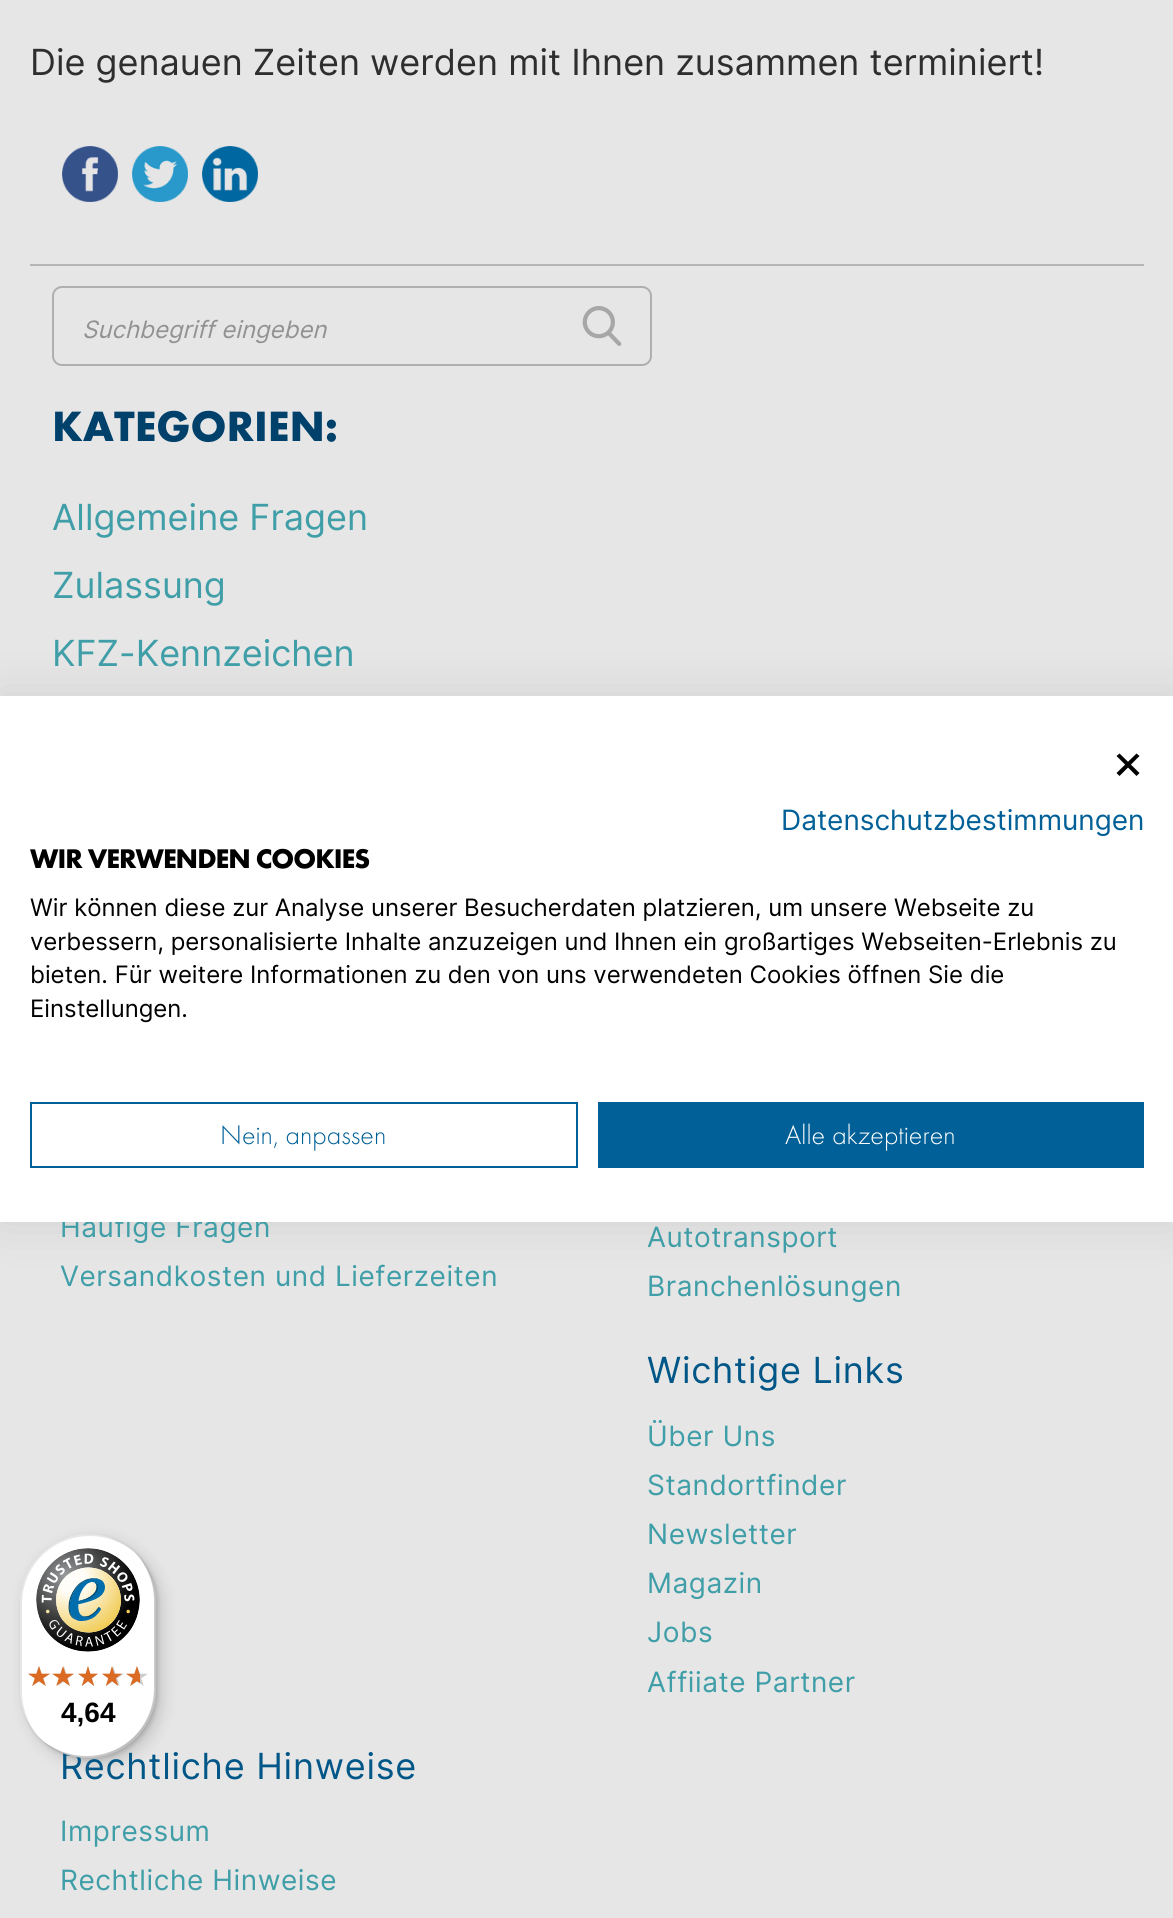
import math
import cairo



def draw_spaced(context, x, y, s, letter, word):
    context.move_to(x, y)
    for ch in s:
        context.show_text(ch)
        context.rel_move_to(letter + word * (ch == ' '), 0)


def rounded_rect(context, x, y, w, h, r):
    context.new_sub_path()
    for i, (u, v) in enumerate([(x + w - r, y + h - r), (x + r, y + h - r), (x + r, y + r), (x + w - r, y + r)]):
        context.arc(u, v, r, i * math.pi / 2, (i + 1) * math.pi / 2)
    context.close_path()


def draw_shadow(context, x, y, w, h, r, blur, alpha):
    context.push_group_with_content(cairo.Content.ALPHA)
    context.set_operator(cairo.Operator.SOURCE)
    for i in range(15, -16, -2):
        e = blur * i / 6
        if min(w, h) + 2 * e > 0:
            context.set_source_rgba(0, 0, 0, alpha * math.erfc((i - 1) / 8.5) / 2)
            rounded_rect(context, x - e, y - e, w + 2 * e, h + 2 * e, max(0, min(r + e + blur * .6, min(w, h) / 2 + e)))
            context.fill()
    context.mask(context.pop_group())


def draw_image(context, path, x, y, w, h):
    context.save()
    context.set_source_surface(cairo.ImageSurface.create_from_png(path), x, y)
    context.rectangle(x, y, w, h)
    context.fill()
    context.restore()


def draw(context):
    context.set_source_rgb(230 / 255, 230 / 255, 230 / 255)
    context.paint()
    context.set_source_rgb(181 / 255, 181 / 255, 181 / 255)
    context.rectangle(30, 264, 1114, 2)
    context.fill()
    draw_image(context, "images/1.png", 62, 146, 56, 56)
    draw_image(context, "images/2.png", 132, 146, 56, 56)
    draw_image(context, "images/3.png", 202, 146, 56, 56)
    rounded_rect(context, 53, 287, 598, 78, 9)
    context.set_source_rgb(175 / 255, 175 / 255, 175 / 255)
    context.stroke()
    draw_image(context, "images/4.png", 582, 306, 40, 40)
    context.set_source_rgb(0, 0, 0)
    draw_shadow(context, 0, 696, 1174, 526, 0, 24, 0.1)
    draw_shadow(context, 26, 1540, 136, 224, 68, 8, 0.15)
    draw_shadow(context, 22, 1536, 136, 224, 68, 2, 0.15)
    context.select_font_face("Inter")
    context.set_font_size(36)
    context.set_source_rgb(46 / 255, 46 / 255, 46 / 255)
    context.move_to(30, 75)
    context.show_text("Die genauen Zeiten werden mit Ihnen zusammen terminiert!")
    context.select_font_face("Inter", cairo.FontSlant.ITALIC)
    context.set_font_size(24)
    context.set_source_rgb(146 / 255, 146 / 255, 146 / 255)
    context.move_to(82, 338)
    context.show_text("Suchbegriff eingeben")
    context.select_font_face("futura")
    context.set_font_size(44)
    context.set_source_rgb(0, 65 / 255, 108 / 255)
    context.move_to(52, 441)
    context.show_text("KATEGORIEN:")
    context.select_font_face("Inter")
    context.set_font_size(36)
    context.set_source_rgb(63 / 255, 158 / 255, 167 / 255)
    context.move_to(52, 530)
    context.show_text("Allgemeine Fragen")
    context.move_to(52, 598)
    context.show_text("Zulassung")
    context.move_to(52, 666)
    context.show_text("KFZ-Kennzeichen")
    context.set_font_size(28)
    draw_spaced(context, 60, 1237, "Häufige Fragen", 0.55, 0)
    draw_spaced(context, 60, 1286, "Versandkosten und Lieferzeiten", 0.55, 0)
    draw_spaced(context, 647, 1247, "Autotransport", 0.55, 0)
    draw_spaced(context, 647, 1296, "Branchenlösungen", 0.55, 0)
    context.set_font_size(36)
    context.set_source_rgb(0, 86 / 255, 135 / 255)
    draw_spaced(context, 647, 1383, "Wichtige Links", 0.75, 0)
    context.set_font_size(28)
    context.set_source_rgb(63 / 255, 158 / 255, 167 / 255)
    draw_spaced(context, 647, 1446, "Über Uns", 0.55, 0)
    draw_spaced(context, 647, 1495, "Standortfinder", 0.55, 0)
    draw_spaced(context, 647, 1544, "Newsletter", 0.55, 0)
    draw_spaced(context, 647, 1593, "Magazin", 0.55, 0)
    draw_spaced(context, 647, 1642, "Jobs", 0.55, 0)
    draw_spaced(context, 647, 1692, "Affiiate Partner", 0.55, 0)
    context.set_font_size(36)
    context.set_source_rgb(0, 86 / 255, 135 / 255)
    draw_spaced(context, 60, 1779, "Rechtliche Hinweise", 0.75, 0)
    context.set_font_size(28)
    context.set_source_rgb(63 / 255, 158 / 255, 167 / 255)
    draw_spaced(context, 60, 1841, "Impressum", 0.55, 0)
    draw_spaced(context, 60, 1890, "Rechtliche Hinweise", 0.55, 0)
    context.set_source_rgb(1, 1, 1)
    context.rectangle(0, 696, 1173, 526)
    context.fill()
    context.set_source_rgb(0, 0, 0)
    context.new_path()
    context.move_to(1136.5, 753.5)
    context.line_to(1139.5, 756)
    context.line_to(1119.5, 776)
    context.line_to(1116.5, 773)
    context.close_path()
    context.fill()
    context.new_path()
    context.move_to(1116.5, 756)
    context.line_to(1119.5, 753.5)
    context.line_to(1139.5, 773)
    context.line_to(1136.5, 776)
    context.close_path()
    context.fill()
    context.set_source_rgb(0, 96 / 255, 151 / 255)
    context.move_to(781, 830)
    context.show_text("Datenschutzbestimmungen")
    context.select_font_face("futura")
    context.set_source_rgb(0, 0, 0)
    draw_spaced(context, 30, 868, "WIR VERWENDEN COOKIES", -1, 0)
    context.select_font_face("Inter")
    context.set_font_size(24)
    context.move_to(30, 916)
    context.show_text("Wir können diese zur Analyse unserer Besucherdaten platzieren, um unsere Webseite zu")
    context.move_to(30, 950)
    context.show_text("verbessern, personalisierte Inhalte anzuzeigen und Ihnen ein großartiges Webseiten-Erlebnis zu")
    context.move_to(30, 983)
    context.show_text("bieten. Für weitere Informationen zu den von uns verwendeten Cookies öffnen Sie die")
    context.move_to(30, 1017)
    context.show_text("Einstellungen.")
    context.rectangle(31, 1103, 546, 64)
    context.set_source_rgb(0, 96 / 255, 151 / 255)
    context.stroke()
    context.select_font_face("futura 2")
    context.set_font_size(28)
    context.move_to(220, 1144)
    context.show_text("Nein, anpassen")
    context.rectangle(598, 1102, 546, 66)
    context.fill()
    context.set_source_rgb(1, 1, 1)
    context.move_to(785, 1144)
    context.show_text("Alle akzeptieren")
    rounded_rect(context, 20, 1534, 136, 224, 68)
    context.fill()
    context.set_source_rgba(0, 0, 0, 0.1)
    context.new_path()
    context.move_to(90, 1536)
    context.curve_to(106, 1536, 121, 1542, 133, 1551)
    context.curve_to(121, 1540, 105, 1534, 88, 1534)
    context.curve_to(50, 1534, 20, 1564, 20, 1602)
    context.line_to(20, 1690)
    context.curve_to(20, 1707, 26, 1723, 37, 1735)
    context.curve_to(28, 1723, 22, 1708, 22, 1692)
    context.line_to(22, 1604)
    context.curve_to(22, 1566, 52, 1536, 90, 1536)
    context.close_path()
    context.fill()
    context.set_source_rgba(0, 0, 0, 0.2)
    context.new_path()
    context.move_to(43, 1741)
    context.curve_to(55, 1752, 71, 1758, 88, 1758)
    context.curve_to(126, 1758, 156, 1728, 156, 1690)
    context.line_to(156, 1602)
    context.curve_to(156, 1585, 150, 1569, 139, 1557)
    context.curve_to(148, 1569, 154, 1584, 154, 1600)
    context.line_to(154, 1688)
    context.curve_to(154, 1726, 124, 1756, 86, 1756)
    context.curve_to(70, 1756, 55, 1750, 43, 1741)
    context.close_path()
    context.fill()
    context.set_source_rgba(50 / 255, 50 / 255, 50 / 255, 0.2)
    context.new_path()
    context.move_to(38, 1737)
    context.curve_to(51, 1750, 68, 1758, 88, 1758)
    context.curve_to(126, 1758, 156, 1728, 156, 1690)
    context.line_to(156, 1602)
    context.curve_to(156, 1582, 148, 1565, 135, 1552)
    context.curve_to(147, 1565, 155, 1582, 155, 1601)
    context.line_to(155, 1689)
    context.curve_to(155, 1726, 124, 1757, 87, 1757)
    context.curve_to(68, 1757, 51, 1749, 38, 1737)
    context.close_path()
    context.fill()
    context.set_source_rgba(1, 1, 1, 0.3)
    context.new_path()
    context.move_to(47, 1744)
    context.curve_to(59, 1753, 73, 1758, 88, 1758)
    context.curve_to(126, 1758, 156, 1728, 156, 1690)
    context.line_to(156, 1602)
    context.curve_to(156, 1587, 151, 1573, 142, 1561)
    context.curve_to(150, 1572, 155, 1586, 155, 1601)
    context.line_to(155, 1689)
    context.curve_to(155, 1727, 125, 1757, 87, 1757)
    context.curve_to(72, 1757, 58, 1752, 47, 1744)
    context.close_path()
    context.fill()
    draw_image(context, "images/5.png", 36, 1548, 104, 104)
    draw_image(context, "images/6.png", 28, 1666, 22, 20)
    draw_image(context, "images/7.png", 54, 1666, 20, 20)
    draw_image(context, "images/8.png", 78, 1666, 20, 20)
    draw_image(context, "images/9.png", 102, 1666, 22, 20)
    draw_image(context, "images/9.png", 126, 1666, 22, 20)
    draw_image(context, "images/10.png", 28, 1666, 22, 20)
    draw_image(context, "images/11.png", 52, 1666, 22, 20)
    draw_image(context, "images/12.png", 78, 1666, 20, 20)
    draw_image(context, "images/13.png", 102, 1666, 20, 20)
    draw_image(context, "images/14.png", 126, 1666, 14, 20)
    context.select_font_face("Liberation Sans", cairo.FontSlant.NORMAL, cairo.FontWeight.BOLD)
    context.set_source_rgb(0, 0, 0)
    context.move_to(61, 1722)
    context.show_text("4,64")


surface = cairo.ImageSurface(cairo.Format.RGB24, 1173, 1918)
context = cairo.Context(surface)
options = cairo.FontOptions()
options.set_hint_metrics(cairo.HintMetrics.OFF)
options.set_hint_style(cairo.HintStyle.NONE)
context.set_font_options(options)
context.set_miter_limit(4)
draw(context)
surface.write_to_png("out.png")
